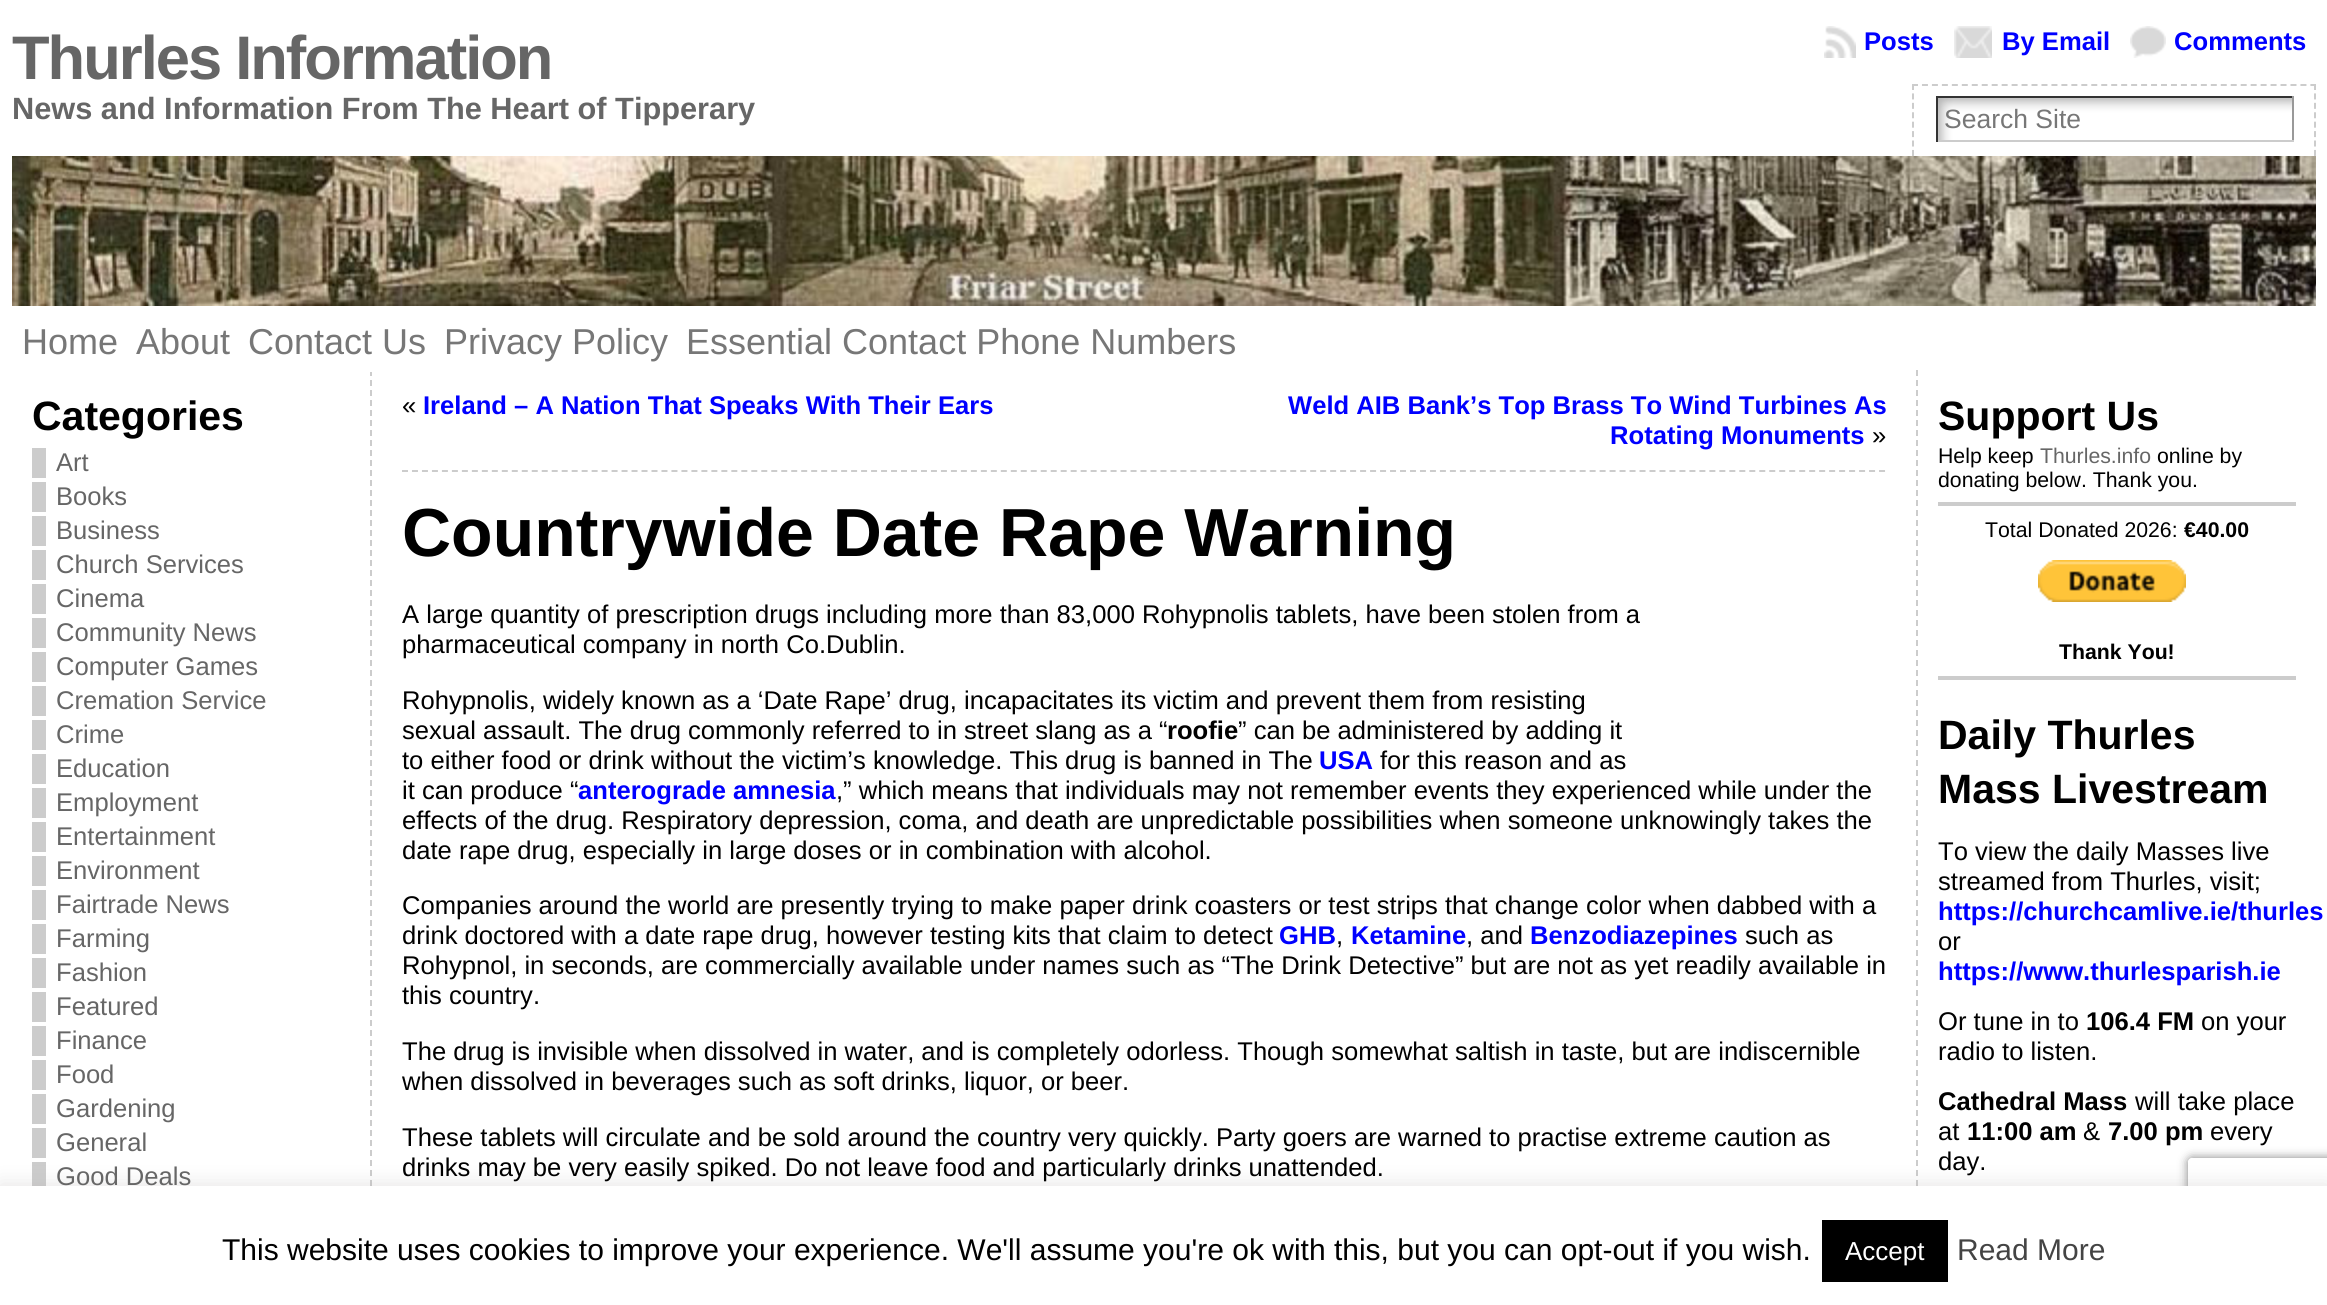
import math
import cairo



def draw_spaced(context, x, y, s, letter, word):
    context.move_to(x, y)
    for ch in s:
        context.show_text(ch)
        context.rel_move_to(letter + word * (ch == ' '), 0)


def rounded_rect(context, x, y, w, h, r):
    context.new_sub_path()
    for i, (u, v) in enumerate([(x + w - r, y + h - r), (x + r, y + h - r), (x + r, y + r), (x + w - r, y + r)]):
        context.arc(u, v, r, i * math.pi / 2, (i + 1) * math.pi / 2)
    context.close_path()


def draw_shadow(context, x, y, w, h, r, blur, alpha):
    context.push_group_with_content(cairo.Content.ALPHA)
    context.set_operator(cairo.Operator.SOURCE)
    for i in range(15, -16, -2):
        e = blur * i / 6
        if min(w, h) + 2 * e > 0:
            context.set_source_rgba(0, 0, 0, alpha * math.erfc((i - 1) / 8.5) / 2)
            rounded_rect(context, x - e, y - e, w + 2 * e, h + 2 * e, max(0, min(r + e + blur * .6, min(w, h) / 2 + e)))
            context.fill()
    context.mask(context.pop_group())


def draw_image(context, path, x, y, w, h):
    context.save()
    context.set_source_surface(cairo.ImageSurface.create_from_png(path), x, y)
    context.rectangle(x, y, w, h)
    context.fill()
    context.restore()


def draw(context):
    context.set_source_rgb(1, 1, 1)
    context.paint()
    draw_image(context, "images/1.png", 1824, 26, 32, 32)
    draw_image(context, "images/2.png", 1954, 26, 38, 32)
    draw_image(context, "images/3.png", 2130, 26, 36, 32)
    context.new_path()
    context.move_to(1912, 85)
    context.line_to(2316, 85)
    context.set_source_rgb(204 / 255, 204 / 255, 204 / 255)
    context.set_dash([6, 3.96])
    context.stroke()
    context.new_path()
    context.move_to(2315, 84)
    context.line_to(2315, 156)
    context.set_dash([6, 3.42])
    context.stroke()
    context.new_path()
    context.move_to(1913, 84)
    context.line_to(1913, 156)
    context.stroke()
    draw_image(context, "images/4.png", 1938, 98, 354, 42)
    context.set_source_rgb(51 / 255, 51 / 255, 51 / 255)
    context.rectangle(1936, 96, 358, 2)
    context.fill()
    context.set_source_rgb(153 / 255, 153 / 255, 153 / 255)
    context.rectangle(2292, 96, 2, 46)
    context.fill()
    context.set_source_rgb(204 / 255, 204 / 255, 204 / 255)
    context.rectangle(1936, 140, 358, 2)
    context.fill()
    context.set_source_rgb(51 / 255, 51 / 255, 51 / 255)
    context.rectangle(1936, 96, 2, 46)
    context.fill()
    draw_image(context, "images/5.png", 12, 156, 2304, 150)
    context.new_path()
    context.move_to(371, 370)
    context.line_to(371, 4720)
    context.set_source_rgb(204 / 255, 204 / 255, 204 / 255)
    context.set_dash([6, 4])
    context.stroke()
    context.set_source_rgb(1, 1, 1)
    context.rectangle(370, 370, 2, 2)
    context.fill()
    context.set_source_rgb(204 / 255, 204 / 255, 204 / 255)
    context.rectangle(32, 448, 14, 30)
    context.fill()
    context.rectangle(32, 482, 14, 30)
    context.fill()
    context.rectangle(32, 516, 14, 30)
    context.fill()
    context.rectangle(32, 550, 14, 30)
    context.fill()
    context.rectangle(32, 584, 14, 30)
    context.fill()
    context.rectangle(32, 618, 14, 30)
    context.fill()
    context.rectangle(32, 652, 14, 30)
    context.fill()
    context.rectangle(32, 686, 14, 30)
    context.fill()
    context.rectangle(32, 720, 14, 30)
    context.fill()
    context.rectangle(32, 754, 14, 30)
    context.fill()
    context.rectangle(32, 788, 14, 30)
    context.fill()
    context.rectangle(32, 822, 14, 30)
    context.fill()
    context.rectangle(32, 856, 14, 30)
    context.fill()
    context.rectangle(32, 890, 14, 30)
    context.fill()
    context.rectangle(32, 924, 14, 30)
    context.fill()
    context.rectangle(32, 958, 14, 30)
    context.fill()
    context.rectangle(32, 992, 14, 30)
    context.fill()
    context.rectangle(32, 1026, 14, 30)
    context.fill()
    context.rectangle(32, 1060, 14, 30)
    context.fill()
    context.rectangle(32, 1094, 14, 30)
    context.fill()
    context.rectangle(32, 1128, 14, 30)
    context.fill()
    context.rectangle(32, 1162, 14, 24)
    context.fill()
    context.new_path()
    context.move_to(402, 471)
    context.line_to(1886, 471)
    context.set_dash([6, 3.98])
    context.stroke()
    context.new_path()
    context.move_to(1917, 370)
    context.line_to(1917, 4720)
    context.set_dash([6, 4])
    context.stroke()
    context.rectangle(1938, 502, 358, 4)
    context.fill()
    draw_image(context, "images/6.png", 2038, 560, 148, 42)
    context.rectangle(1938, 676, 358, 4)
    context.fill()
    context.set_source_rgb(172 / 255, 171 / 255, 171 / 255)
    draw_shadow(context, 0, 1184, 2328, 120, 0, 10, 0.3)
    context.save()
    context.set_fill_rule(cairo.FillRule.EVEN_ODD)
    context.new_path()
    context.move_to(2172, 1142)
    context.line_to(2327, 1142)
    context.line_to(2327, 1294)
    context.line_to(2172, 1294)
    context.close_path()
    context.move_to(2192, 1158)
    context.line_to(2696, 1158)
    context.curve_to(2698, 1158, 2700, 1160, 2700, 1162)
    context.line_to(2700, 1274)
    context.curve_to(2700, 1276, 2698, 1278, 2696, 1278)
    context.line_to(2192, 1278)
    context.curve_to(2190, 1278, 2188, 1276, 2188, 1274)
    context.line_to(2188, 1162)
    context.curve_to(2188, 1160, 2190, 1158, 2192, 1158)
    context.close_path()
    context.clip()
    context.set_source_rgb(128 / 255, 128 / 255, 128 / 255)
    draw_shadow(context, 2188, 1158, 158, 120, 4, 5, 1)
    context.restore()
    context.set_source_rgb(1, 1, 1)
    context.rectangle(0, 1186, 2327, 119)
    context.fill()
    context.set_source_rgb(0, 0, 0)
    context.rectangle(1822, 1220, 126, 62)
    context.fill()
    context.select_font_face("Liberation Sans", cairo.FontSlant.NORMAL, cairo.FontWeight.BOLD)
    context.set_font_size(61.5)
    context.set_source_rgb(102 / 255, 102 / 255, 102 / 255)
    draw_spaced(context, 12, 79, "Thurles Information", -2, 0)
    context.set_font_size(30.75)
    context.move_to(12, 119)
    context.show_text("News and Information From The Heart of Tipperary")
    context.set_font_size(25.6)
    context.set_source_rgb(0, 0, 1)
    context.move_to(1864, 50)
    context.show_text("Posts")
    context.move_to(2002, 50)
    context.show_text("By Email")
    context.move_to(2174, 50)
    context.show_text("Comments")
    context.select_font_face("Liberation Sans")
    context.set_font_size(26.5)
    context.set_source_rgb(119 / 255, 119 / 255, 119 / 255)
    context.move_to(1944, 128)
    context.show_text("Search Site")
    context.set_font_size(36)
    context.move_to(22, 354)
    context.show_text("Home")
    context.move_to(136, 354)
    context.show_text("About")
    context.move_to(248, 354)
    context.show_text("Contact Us")
    context.move_to(444, 354)
    context.show_text("Privacy Policy")
    context.move_to(686, 354)
    context.show_text("Essential Contact Phone Numbers")
    context.select_font_face("Liberation Sans", cairo.FontSlant.NORMAL, cairo.FontWeight.BOLD)
    context.set_font_size(41)
    context.set_source_rgb(0, 0, 0)
    context.move_to(32, 430)
    context.show_text("Categories")
    context.select_font_face("Liberation Sans")
    context.set_font_size(25.6)
    context.set_source_rgb(102 / 255, 102 / 255, 102 / 255)
    context.move_to(56, 471)
    context.show_text("Art")
    context.move_to(56, 505)
    context.show_text("Books")
    context.move_to(56, 539)
    context.show_text("Business")
    context.move_to(56, 573)
    context.show_text("Church Services")
    context.move_to(56, 607)
    context.show_text("Cinema")
    context.move_to(56, 641)
    context.show_text("Community News")
    context.move_to(56, 675)
    context.show_text("Computer Games")
    context.move_to(56, 709)
    context.show_text("Cremation Service")
    context.move_to(56, 743)
    context.show_text("Crime")
    context.move_to(56, 777)
    context.show_text("Education")
    context.move_to(56, 811)
    context.show_text("Employment")
    context.move_to(56, 845)
    context.show_text("Entertainment")
    context.move_to(56, 879)
    context.show_text("Environment")
    context.move_to(56, 913)
    context.show_text("Fairtrade News")
    context.move_to(56, 947)
    context.show_text("Farming")
    context.move_to(56, 981)
    context.show_text("Fashion")
    context.move_to(56, 1015)
    context.show_text("Featured")
    context.move_to(56, 1049)
    context.show_text("Finance")
    context.move_to(56, 1083)
    context.show_text("Food")
    context.move_to(56, 1117)
    context.show_text("Gardening")
    context.move_to(56, 1151)
    context.show_text("General")
    context.move_to(56, 1185)
    context.show_text("Good Deals")
    context.set_source_rgb(0, 0, 0)
    context.move_to(402, 414)
    context.show_text("«")
    context.select_font_face("Liberation Sans", cairo.FontSlant.NORMAL, cairo.FontWeight.BOLD)
    context.set_source_rgb(0, 0, 1)
    context.move_to(423, 414)
    context.show_text("Ireland – A Nation That Speaks With Their Ears")
    context.move_to(1288, 414)
    context.show_text("Weld AIB Bank’s Top Brass To Wind Turbines As")
    context.move_to(1610, 444)
    context.show_text("Rotating Monuments")
    context.select_font_face("Liberation Sans")
    context.set_source_rgb(0, 0, 0)
    context.move_to(1872, 444)
    context.show_text("»")
    context.select_font_face("Liberation Sans", cairo.FontSlant.NORMAL, cairo.FontWeight.BOLD)
    context.set_font_size(68)
    context.move_to(402, 556)
    context.show_text("Countrywide Date Rape Warning")
    context.select_font_face("Liberation Sans")
    context.set_font_size(25.6)
    context.move_to(402, 623)
    context.show_text("A large quantity of prescription drugs including more than 83,000 Rohypnolis tablets, have been stolen from a")
    context.move_to(402, 653)
    context.show_text("pharmaceutical company in north Co.Dublin.")
    context.move_to(402, 709)
    context.show_text("Rohypnolis, widely known as a ‘Date Rape’ drug, incapacitates its victim and prevent them from resisting")
    context.move_to(402, 739)
    context.show_text("sexual assault. The drug commonly referred to in street slang as a “")
    context.select_font_face("Liberation Sans", cairo.FontSlant.NORMAL, cairo.FontWeight.BOLD)
    context.move_to(1167, 739)
    context.show_text("roofie")
    context.select_font_face("Liberation Sans")
    context.move_to(1238, 739)
    context.show_text("” can be administered by adding it")
    context.move_to(402, 769)
    context.show_text("to either food or drink without the victim’s knowledge. This drug is banned in The")
    context.select_font_face("Liberation Sans", cairo.FontSlant.NORMAL, cairo.FontWeight.BOLD)
    context.set_source_rgb(0, 0, 1)
    context.move_to(1319, 769)
    context.show_text("USA")
    context.select_font_face("Liberation Sans")
    context.set_source_rgb(0, 0, 0)
    context.move_to(1380, 769)
    context.show_text("for this reason and as")
    context.move_to(402, 799)
    context.show_text("it can produce “")
    context.select_font_face("Liberation Sans", cairo.FontSlant.NORMAL, cairo.FontWeight.BOLD)
    context.set_source_rgb(0, 0, 1)
    context.move_to(578, 799)
    context.show_text("anterograde amnesia")
    context.select_font_face("Liberation Sans")
    context.set_source_rgb(0, 0, 0)
    context.move_to(836, 799)
    context.show_text(",” which means that individuals may not remember events they experienced while under the")
    context.move_to(402, 829)
    context.show_text("effects of the drug. Respiratory depression, coma, and death are unpredictable possibilities when someone unknowingly takes the")
    context.move_to(402, 859)
    context.show_text("date rape drug, especially in large doses or in combination with alcohol.")
    context.move_to(402, 914)
    context.show_text("Companies around the world are presently trying to make paper drink coasters or test strips that change color when dabbed with a")
    context.move_to(402, 944)
    context.show_text("drink doctored with a date rape drug, however testing kits that claim to detect")
    context.select_font_face("Liberation Sans", cairo.FontSlant.NORMAL, cairo.FontWeight.BOLD)
    context.set_source_rgb(0, 0, 1)
    context.move_to(1279, 944)
    context.show_text("GHB")
    context.select_font_face("Liberation Sans")
    context.set_source_rgb(0, 0, 0)
    context.move_to(1336, 944)
    context.show_text(",")
    context.select_font_face("Liberation Sans", cairo.FontSlant.NORMAL, cairo.FontWeight.BOLD)
    context.set_source_rgb(0, 0, 1)
    context.move_to(1351, 944)
    context.show_text("Ketamine")
    context.select_font_face("Liberation Sans")
    context.set_source_rgb(0, 0, 0)
    context.move_to(1466, 944)
    context.show_text(", and")
    context.select_font_face("Liberation Sans", cairo.FontSlant.NORMAL, cairo.FontWeight.BOLD)
    context.set_source_rgb(0, 0, 1)
    context.move_to(1530, 944)
    context.show_text("Benzodiazepines")
    context.select_font_face("Liberation Sans")
    context.set_source_rgb(0, 0, 0)
    context.move_to(1745, 944)
    context.show_text("such as")
    context.move_to(402, 974)
    context.show_text("Rohypnol, in seconds, are commercially available under names such as “The Drink Detective” but are not as yet readily available in")
    context.move_to(402, 1004)
    context.show_text("this country.")
    context.move_to(402, 1060)
    context.show_text("The drug is invisible when dissolved in water, and is completely odorless. Though somewhat saltish in taste, but are indiscernible")
    context.move_to(402, 1090)
    context.show_text("when dissolved in beverages such as soft drinks, liquor, or beer.")
    context.move_to(402, 1146)
    context.show_text("These tablets will circulate and be sold around the country very quickly. Party goers are warned to practise extreme caution as")
    context.move_to(402, 1176)
    context.show_text("drinks may be very easily spiked. Do not leave food and particularly drinks unattended.")
    context.select_font_face("Liberation Sans", cairo.FontSlant.NORMAL, cairo.FontWeight.BOLD)
    context.set_font_size(41)
    context.move_to(1938, 430)
    context.show_text("Support Us")
    context.select_font_face("Liberation Sans")
    context.set_font_size(21.25)
    context.move_to(1938, 463)
    context.show_text("Help keep")
    context.set_source_rgb(102 / 255, 102 / 255, 102 / 255)
    context.move_to(2040, 463)
    context.show_text("Thurles.info")
    context.set_source_rgb(0, 0, 0)
    context.move_to(2157, 463)
    context.show_text("online by")
    context.move_to(1938, 487)
    context.show_text("donating below. Thank you.")
    context.move_to(1985, 537)
    context.show_text("Total Donated 2026:")
    context.select_font_face("Liberation Sans", cairo.FontSlant.NORMAL, cairo.FontWeight.BOLD)
    context.move_to(2184, 537)
    context.show_text("€40.00")
    context.move_to(2059, 659)
    context.show_text("Thank You!")
    context.set_font_size(41)
    context.move_to(1938, 749)
    context.show_text("Daily Thurles")
    context.move_to(1938, 803)
    context.show_text("Mass Livestream")
    context.select_font_face("Liberation Sans")
    context.set_font_size(25.6)
    context.move_to(1938, 860)
    context.show_text("To view the daily Masses live")
    context.move_to(1938, 890)
    context.show_text("streamed from Thurles, visit;")
    context.select_font_face("Liberation Sans", cairo.FontSlant.NORMAL, cairo.FontWeight.BOLD)
    context.set_source_rgb(0, 0, 1)
    context.move_to(1938, 920)
    context.show_text("https://churchcamlive.ie/thurles")
    context.select_font_face("Liberation Sans")
    context.set_source_rgb(0, 0, 0)
    context.move_to(1938, 950)
    context.show_text("or")
    context.select_font_face("Liberation Sans", cairo.FontSlant.NORMAL, cairo.FontWeight.BOLD)
    context.set_source_rgb(0, 0, 1)
    context.move_to(1938, 980)
    context.show_text("https://www.thurlesparish.ie")
    context.select_font_face("Liberation Sans")
    context.set_source_rgb(0, 0, 0)
    context.move_to(1938, 1030)
    context.show_text("Or tune in to")
    context.select_font_face("Liberation Sans", cairo.FontSlant.NORMAL, cairo.FontWeight.BOLD)
    context.move_to(2086, 1030)
    context.show_text("106.4 FM")
    context.select_font_face("Liberation Sans")
    context.move_to(2201, 1030)
    context.show_text("on your")
    context.move_to(1938, 1060)
    context.show_text("radio to listen.")
    context.select_font_face("Liberation Sans", cairo.FontSlant.NORMAL, cairo.FontWeight.BOLD)
    context.move_to(1938, 1110)
    context.show_text("Cathedral Mass")
    context.select_font_face("Liberation Sans")
    context.move_to(2135, 1110)
    context.show_text("will take place")
    context.move_to(1938, 1140)
    context.show_text("at")
    context.select_font_face("Liberation Sans", cairo.FontSlant.NORMAL, cairo.FontWeight.BOLD)
    context.move_to(1967, 1140)
    context.show_text("11:00 am")
    context.select_font_face("Liberation Sans")
    context.move_to(2083, 1140)
    context.show_text("&")
    context.select_font_face("Liberation Sans", cairo.FontSlant.NORMAL, cairo.FontWeight.BOLD)
    context.move_to(2108, 1140)
    context.show_text("7.00 pm")
    context.select_font_face("Liberation Sans")
    context.move_to(2210, 1140)
    context.show_text("every")
    context.move_to(1938, 1170)
    context.show_text("day.")
    context.set_font_size(30)
    context.move_to(222, 1260)
    context.show_text("This website uses cookies to improve your experience. We'll assume you're ok with this, but you can opt-out if you wish.")
    context.set_font_size(26)
    context.set_source_rgb(1, 1, 1)
    context.move_to(1845, 1260)
    context.show_text("Accept")
    context.set_font_size(30)
    context.set_source_rgb(68 / 255, 68 / 255, 68 / 255)
    context.move_to(1957, 1260)
    context.show_text("Read More")


surface = cairo.ImageSurface(cairo.Format.RGB24, 2327, 1305)
context = cairo.Context(surface)
options = cairo.FontOptions()
options.set_hint_metrics(cairo.HintMetrics.OFF)
options.set_hint_style(cairo.HintStyle.NONE)
context.set_font_options(options)
context.set_miter_limit(4)
draw(context)
surface.write_to_png("out.png")
